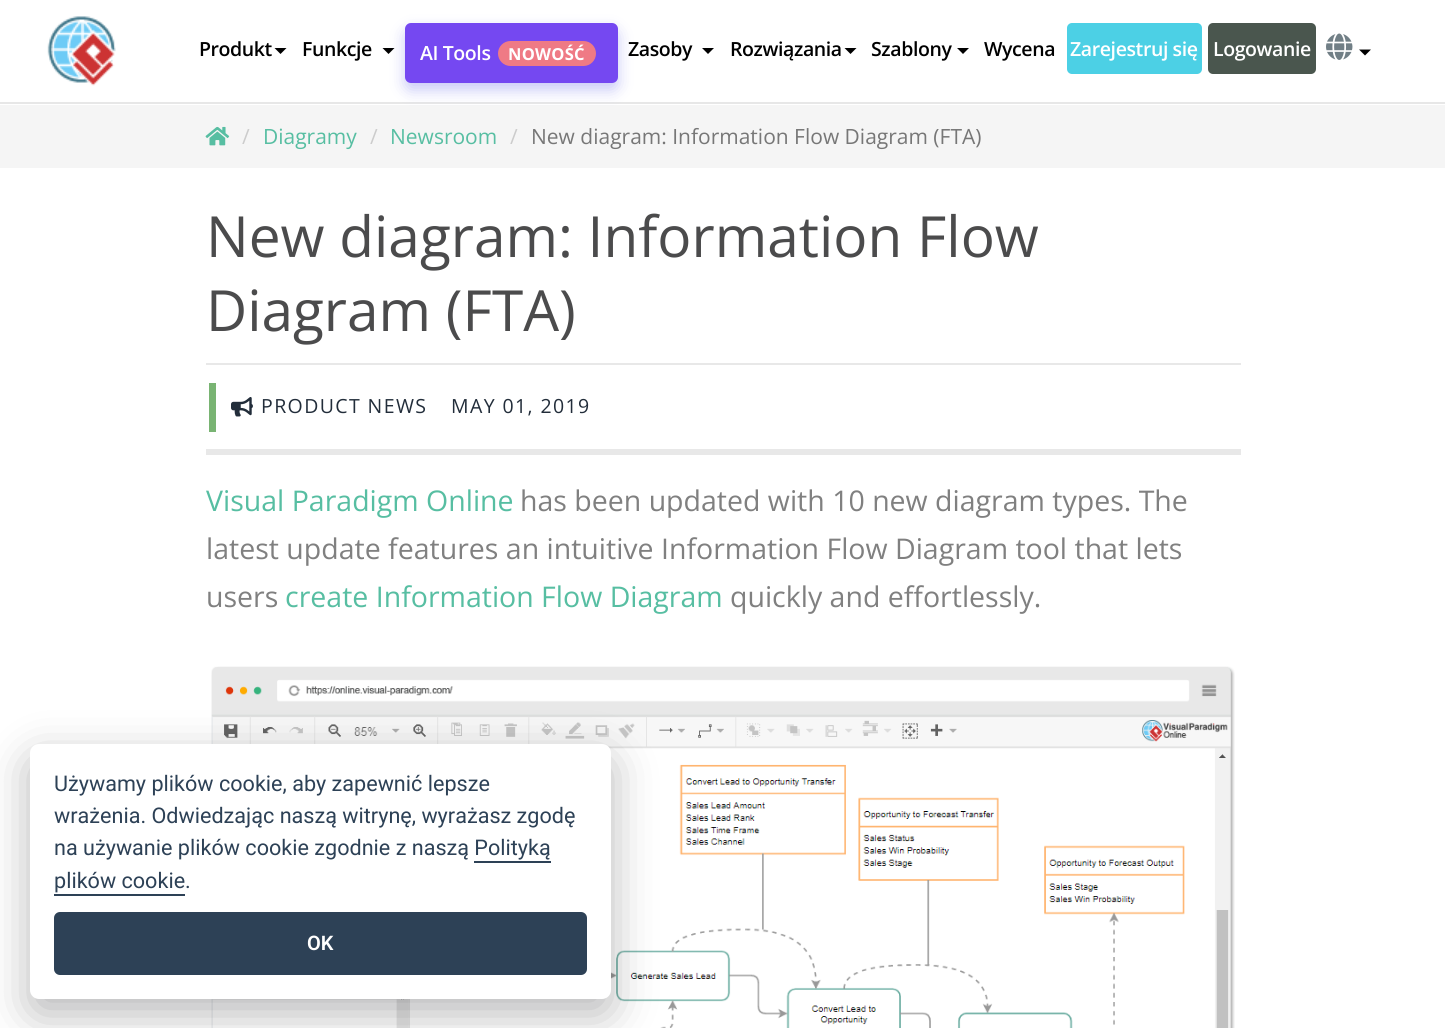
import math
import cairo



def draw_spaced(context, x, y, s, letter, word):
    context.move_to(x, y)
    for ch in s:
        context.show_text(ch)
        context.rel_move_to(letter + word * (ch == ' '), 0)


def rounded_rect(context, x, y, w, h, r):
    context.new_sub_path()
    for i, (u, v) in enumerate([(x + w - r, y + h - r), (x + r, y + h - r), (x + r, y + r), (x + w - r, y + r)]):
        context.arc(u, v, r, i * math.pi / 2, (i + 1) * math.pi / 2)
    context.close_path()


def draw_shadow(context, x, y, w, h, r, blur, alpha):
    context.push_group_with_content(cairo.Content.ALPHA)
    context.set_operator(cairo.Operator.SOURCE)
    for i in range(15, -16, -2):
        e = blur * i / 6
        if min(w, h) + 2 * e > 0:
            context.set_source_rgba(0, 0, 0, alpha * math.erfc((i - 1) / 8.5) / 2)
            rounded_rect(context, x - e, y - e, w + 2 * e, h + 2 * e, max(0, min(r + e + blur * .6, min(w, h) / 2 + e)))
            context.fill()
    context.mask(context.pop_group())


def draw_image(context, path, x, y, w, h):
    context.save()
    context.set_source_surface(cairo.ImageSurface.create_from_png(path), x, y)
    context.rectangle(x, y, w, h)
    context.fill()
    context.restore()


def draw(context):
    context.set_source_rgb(1, 1, 1)
    context.paint()
    context.set_source_rgb(231 / 255, 231 / 255, 231 / 255)
    context.rectangle(0, 102, 1445, 2)
    context.fill()
    draw_image(context, "images/1.png", 47, 16, 69, 70)
    context.set_source_rgb(0, 0, 0)
    context.new_path()
    context.move_to(274.5, 48)
    context.line_to(286.5, 48)
    context.line_to(280.5, 54)
    context.close_path()
    context.fill()
    context.new_path()
    context.move_to(382.5, 48)
    context.line_to(394.5, 48)
    context.line_to(388.5, 54)
    context.close_path()
    context.fill()
    context.set_source_rgb(245 / 255, 245 / 255, 245 / 255)
    context.rectangle(0, 105, 1445, 63)
    context.fill()
    context.set_source_rgb(76 / 255, 78 / 255, 229 / 255)
    draw_shadow(context, 405, 30, 213, 60, 6, 7.5, 0.3)
    context.set_source_rgb(117 / 255, 72 / 255, 241 / 255)
    rounded_rect(context, 405, 23, 213, 60, 6)
    context.fill()
    context.set_source_rgb(239 / 255, 122 / 255, 133 / 255)
    rounded_rect(context, 498, 41, 98, 25, 12.5)
    context.fill()
    context.set_source_rgb(0, 0, 0)
    context.new_path()
    context.move_to(702, 48)
    context.line_to(714, 48)
    context.line_to(708, 54)
    context.close_path()
    context.fill()
    context.new_path()
    context.move_to(844.5, 48)
    context.line_to(856.5, 48)
    context.line_to(850.5, 54)
    context.close_path()
    context.fill()
    context.new_path()
    context.move_to(957, 48)
    context.line_to(969, 48)
    context.line_to(963, 54)
    context.close_path()
    context.fill()
    context.set_source_rgb(76 / 255, 208 / 255, 229 / 255)
    rounded_rect(context, 1067, 23, 135, 51, 5)
    context.fill()
    context.set_source_rgb(74 / 255, 86 / 255, 78 / 255)
    rounded_rect(context, 1208, 23, 108, 51, 5)
    context.fill()
    draw_image(context, "images/2.png", 1326, 33, 27, 27)
    context.set_source_rgb(0, 0, 0)
    context.new_path()
    context.move_to(1359, 49.5)
    context.line_to(1371, 49.5)
    context.line_to(1365, 55.5)
    context.close_path()
    context.fill()
    draw_image(context, "images/3.png", 205, 126, 25, 20)
    context.set_source_rgb(232 / 255, 232 / 255, 232 / 255)
    context.rectangle(206, 363, 1035, 2)
    context.fill()
    context.rectangle(206, 449, 1035, 6)
    context.fill()
    context.set_source_rgb(121 / 255, 180 / 255, 115 / 255)
    context.rectangle(209, 383, 7, 49)
    context.fill()
    draw_image(context, "images/4.png", 231, 397, 22, 20)
    draw_image(context, "images/5.png", 211, 666, 1024, 362)
    context.set_source_rgb(2 / 255, 2 / 255, 3 / 255)
    draw_shadow(context, 30, 759, 581, 255, 9, 22.5, 0.28)
    context.set_source_rgb(1, 1, 1)
    rounded_rect(context, 30, 744, 581, 255, 9)
    context.fill()
    context.set_source_rgb(45 / 255, 65 / 255, 86 / 255)
    context.rectangle(474, 861, 77, 2)
    context.fill()
    context.rectangle(54, 894, 131, 2)
    context.fill()
    rounded_rect(context, 54, 912, 533, 63, 6)
    context.fill()
    context.select_font_face("Open Sans SemiBold")
    context.set_font_size(19.5)
    context.set_source_rgb(0, 0, 0)
    draw_spaced(context, 199, 56, "Produkt", -0.4, 0)
    draw_spaced(context, 302, 56, "Funkcje", -0.4, 0)
    context.set_source_rgb(1, 1, 1)
    draw_spaced(context, 420, 60, "AI Tools", -0.4, 0)
    context.select_font_face("Open Sans", cairo.FontSlant.NORMAL, cairo.FontWeight.BOLD)
    context.set_font_size(16.5)
    draw_spaced(context, 508, 60, "NOWOŚĆ", 0.25, 0)
    context.select_font_face("Open Sans SemiBold")
    context.set_font_size(19.5)
    context.set_source_rgb(0, 0, 0)
    draw_spaced(context, 628, 56, "Zasoby", -0.4, 0)
    draw_spaced(context, 730, 56, "Rozwiązania", -0.4, 0)
    draw_spaced(context, 871, 56, "Szablony", -0.4, 0)
    draw_spaced(context, 984, 56, "Wycena", -0.4, 0)
    context.set_source_rgb(1, 1, 1)
    draw_spaced(context, 1070, 56, "Zarejestruj się", -0.4, 0)
    draw_spaced(context, 1213, 56, "Logowanie", -0.4, 0)
    context.select_font_face("Open Sans")
    context.set_font_size(21)
    context.set_source_rgb(204 / 255, 204 / 255, 204 / 255)
    context.move_to(242, 144)
    context.show_text("/")
    context.set_source_rgb(87 / 255, 190 / 255, 162 / 255)
    context.move_to(263, 144)
    context.show_text("Diagramy")
    context.set_source_rgb(204 / 255, 204 / 255, 204 / 255)
    context.move_to(370, 144)
    context.show_text("/")
    context.set_source_rgb(87 / 255, 190 / 255, 162 / 255)
    context.move_to(390, 144)
    context.show_text("Newsroom")
    context.set_source_rgb(204 / 255, 204 / 255, 204 / 255)
    context.move_to(510, 144)
    context.show_text("/")
    context.set_source_rgb(119 / 255, 119 / 255, 119 / 255)
    context.move_to(531, 144)
    context.show_text("New diagram: Information Flow Diagram (FTA)")
    context.set_font_size(56.75)
    context.set_source_rgb(75 / 255, 75 / 255, 76 / 255)
    context.move_to(206, 257)
    context.show_text("New diagram: Information Flow")
    context.move_to(206, 331)
    context.show_text("Diagram (FTA)")
    context.set_font_size(19.5)
    context.set_source_rgb(34 / 255, 45 / 255, 58 / 255)
    draw_spaced(context, 261, 413, "PRODUCT NEWS", 1.4, 0)
    draw_spaced(context, 451, 413, "MAY 01, 2019", 1.4, 0)
    context.set_font_size(28.5)
    context.set_source_rgb(87 / 255, 190 / 255, 162 / 255)
    context.move_to(206, 511)
    context.show_text("Visual Paradigm Online")
    context.set_source_rgb(128 / 255, 128 / 255, 128 / 255)
    context.move_to(520, 511)
    context.show_text("has been updated with 10 new diagram types. The")
    context.move_to(206, 559)
    context.show_text("latest update features an intuitive Information Flow Diagram tool that lets")
    context.move_to(206, 607)
    context.show_text("users")
    context.set_source_rgb(87 / 255, 190 / 255, 162 / 255)
    context.move_to(285, 607)
    context.show_text("create Information Flow Diagram")
    context.set_source_rgb(128 / 255, 128 / 255, 128 / 255)
    context.move_to(730, 607)
    context.show_text("quickly and effortlessly.")
    context.select_font_face("Roboto")
    context.set_font_size(21.6)
    context.set_source_rgb(45 / 255, 65 / 255, 86 / 255)
    context.move_to(54, 791)
    context.show_text("Używamy plików cookie, aby zapewnić lepsze")
    context.move_to(54, 823)
    context.show_text("wrażenia. Odwiedzając naszą witrynę, wyrażasz zgodę")
    context.move_to(54, 855)
    context.show_text("na używanie plików cookie zgodnie z naszą Polityką")
    context.move_to(54, 888)
    context.show_text("plików cookie.")
    context.select_font_face("Roboto SemiBold")
    context.set_font_size(20)
    context.set_source_rgb(1, 1, 1)
    context.move_to(307, 950)
    context.show_text("OK")


surface = cairo.ImageSurface(cairo.Format.RGB24, 1445, 1028)
context = cairo.Context(surface)
options = cairo.FontOptions()
options.set_hint_metrics(cairo.HintMetrics.OFF)
options.set_hint_style(cairo.HintStyle.NONE)
context.set_font_options(options)
context.set_miter_limit(4)
draw(context)
surface.write_to_png("out.png")
